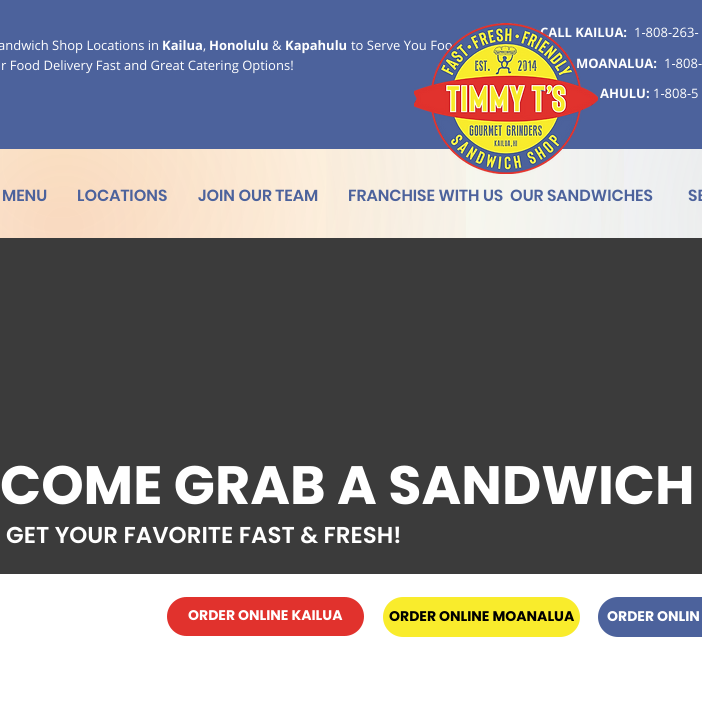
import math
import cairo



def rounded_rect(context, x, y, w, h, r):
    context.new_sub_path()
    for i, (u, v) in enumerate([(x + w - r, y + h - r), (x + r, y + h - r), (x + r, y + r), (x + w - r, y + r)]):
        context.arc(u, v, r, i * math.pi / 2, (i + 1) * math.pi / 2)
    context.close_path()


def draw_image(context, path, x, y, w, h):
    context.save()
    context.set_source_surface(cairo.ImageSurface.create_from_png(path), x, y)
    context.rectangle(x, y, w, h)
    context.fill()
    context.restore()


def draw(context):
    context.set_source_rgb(1, 1, 1)
    context.paint()
    context.set_source_rgb(76 / 255, 98 / 255, 156 / 255)
    context.rectangle(0, 0, 702, 149)
    context.fill()
    gradient = cairo.RadialGradient(918, 159, 0, 918, 159, 922)
    gradient.add_color_stop_rgba(0, 225 / 255, 228 / 255, 238 / 255, 1)
    gradient.add_color_stop_rgba(0.7, 1, 1, 1, 1)
    context.set_source(gradient)
    context.rectangle(326, 149, 376, 89)
    context.fill()
    gradient = cairo.RadialGradient(60, 160, 0, 60, 160, 923)
    gradient.add_color_stop_rgba(0, 249 / 255, 236 / 255, 44 / 255, 0.17)
    gradient.add_color_stop_rgba(0.7, 249 / 255, 236 / 255, 44 / 255, 0)
    context.set_source(gradient)
    context.rectangle(0, 149, 624, 89)
    context.fill()
    gradient = cairo.RadialGradient(64, 227, 0, 64, 227, 920)
    gradient.add_color_stop_rgba(0, 225 / 255, 50 / 255, 45 / 255, 0.17)
    gradient.add_color_stop_rgba(0.5, 225 / 255, 50 / 255, 45 / 255, 0)
    context.set_source(gradient)
    context.rectangle(0, 149, 466, 89)
    context.fill()
    gradient = cairo.RadialGradient(925, 229, 0, 925, 229, 928)
    gradient.add_color_stop_rgba(0, 251 / 255, 244 / 255, 148 / 255, 0.17)
    gradient.add_color_stop_rgba(0.4, 251 / 255, 244 / 255, 148 / 255, 0)
    context.set_source(gradient)
    context.rectangle(601, 149, 101, 89)
    context.fill()
    context.set_source_rgb(59 / 255, 59 / 255, 59 / 255)
    context.rectangle(0, 238, 702, 336)
    context.fill()
    context.set_source_rgb(225 / 255, 50 / 255, 45 / 255)
    rounded_rect(context, 167, 597, 197, 39, 19.5)
    context.fill()
    context.set_source_rgb(249 / 255, 236 / 255, 44 / 255)
    rounded_rect(context, 383, 597, 197, 40, 20)
    context.fill()
    context.set_source_rgb(76 / 255, 98 / 255, 156 / 255)
    rounded_rect(context, 598, 597, 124, 40, 20)
    context.fill()
    context.select_font_face("Open Sans")
    context.set_font_size(13)
    context.set_source_rgb(1, 1, 1)
    context.move_to(-2, 50)
    context.show_text("andwich Shop Locations in")
    context.select_font_face("Open Sans", cairo.FontSlant.NORMAL, cairo.FontWeight.BOLD)
    context.move_to(162, 50)
    context.show_text("Kailua")
    context.select_font_face("Open Sans")
    context.move_to(203, 50)
    context.show_text(",")
    context.select_font_face("Open Sans", cairo.FontSlant.NORMAL, cairo.FontWeight.BOLD)
    context.move_to(209, 50)
    context.show_text("Honolulu")
    context.select_font_face("Open Sans")
    context.move_to(272, 50)
    context.show_text("&")
    context.select_font_face("Open Sans", cairo.FontSlant.NORMAL, cairo.FontWeight.BOLD)
    context.move_to(285, 50)
    context.show_text("Kapahulu")
    context.select_font_face("Open Sans")
    context.move_to(351, 50)
    context.show_text("to Serve You Foo")
    context.move_to(1, 70)
    context.show_text("r Food Delivery Fast and Great Catering Options!")
    context.select_font_face("Open Sans", cairo.FontSlant.NORMAL, cairo.FontWeight.BOLD)
    context.move_to(540, 37)
    context.show_text("CALL KAILUA:")
    context.select_font_face("Open Sans")
    context.move_to(634, 37)
    context.show_text("1-808-263-")
    context.select_font_face("Open Sans", cairo.FontSlant.NORMAL, cairo.FontWeight.BOLD)
    context.move_to(576, 68)
    context.show_text("MOANALUA:")
    draw_image(context, "images/1.png", 414, 23, 184, 151)
    context.select_font_face("Open Sans")
    context.move_to(664, 68)
    context.show_text("1-808-")
    context.select_font_face("Open Sans", cairo.FontSlant.NORMAL, cairo.FontWeight.BOLD)
    context.move_to(600, 98)
    context.show_text("AHULU:")
    context.select_font_face("Open Sans")
    context.move_to(653, 98)
    context.show_text("1-808-5")
    context.select_font_face("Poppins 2 SemiBold")
    context.set_font_size(16)
    context.set_source_rgb(76 / 255, 98 / 255, 156 / 255)
    context.move_to(2, 201)
    context.show_text("MENU")
    context.move_to(77, 201)
    context.show_text("LOCATIONS")
    context.move_to(198, 201)
    context.show_text("JOIN OUR TEAM")
    context.move_to(348, 201)
    context.show_text("FRANCHISE WITH US")
    context.move_to(510, 201)
    context.show_text("OUR SANDWICHES")
    context.move_to(688, 201)
    context.show_text("SE")
    context.select_font_face("Poppins", cairo.FontSlant.NORMAL, cairo.FontWeight.BOLD)
    context.set_font_size(54)
    context.set_source_rgb(1, 1, 1)
    context.move_to(0, 504)
    context.show_text("COME GRAB A SANDWICH")
    context.select_font_face("Poppins SemiBold")
    context.set_font_size(23)
    context.move_to(6, 543)
    context.show_text("GET YOUR FAVORITE FAST & FRESH!")
    context.select_font_face("Poppins", cairo.FontSlant.NORMAL, cairo.FontWeight.BOLD)
    context.set_font_size(14)
    context.move_to(188, 620)
    context.show_text("ORDER ONLINE KAILUA")
    context.set_source_rgb(0, 0, 0)
    context.move_to(389, 621)
    context.show_text("ORDER ONLINE MOANALUA")
    context.set_source_rgb(1, 1, 1)
    context.move_to(607, 621)
    context.show_text("ORDER ONLIN")


surface = cairo.ImageSurface(cairo.Format.RGB24, 702, 725)
context = cairo.Context(surface)
options = cairo.FontOptions()
options.set_hint_metrics(cairo.HintMetrics.OFF)
options.set_hint_style(cairo.HintStyle.NONE)
context.set_font_options(options)
context.set_miter_limit(4)
draw(context)
surface.write_to_png("out.png")
